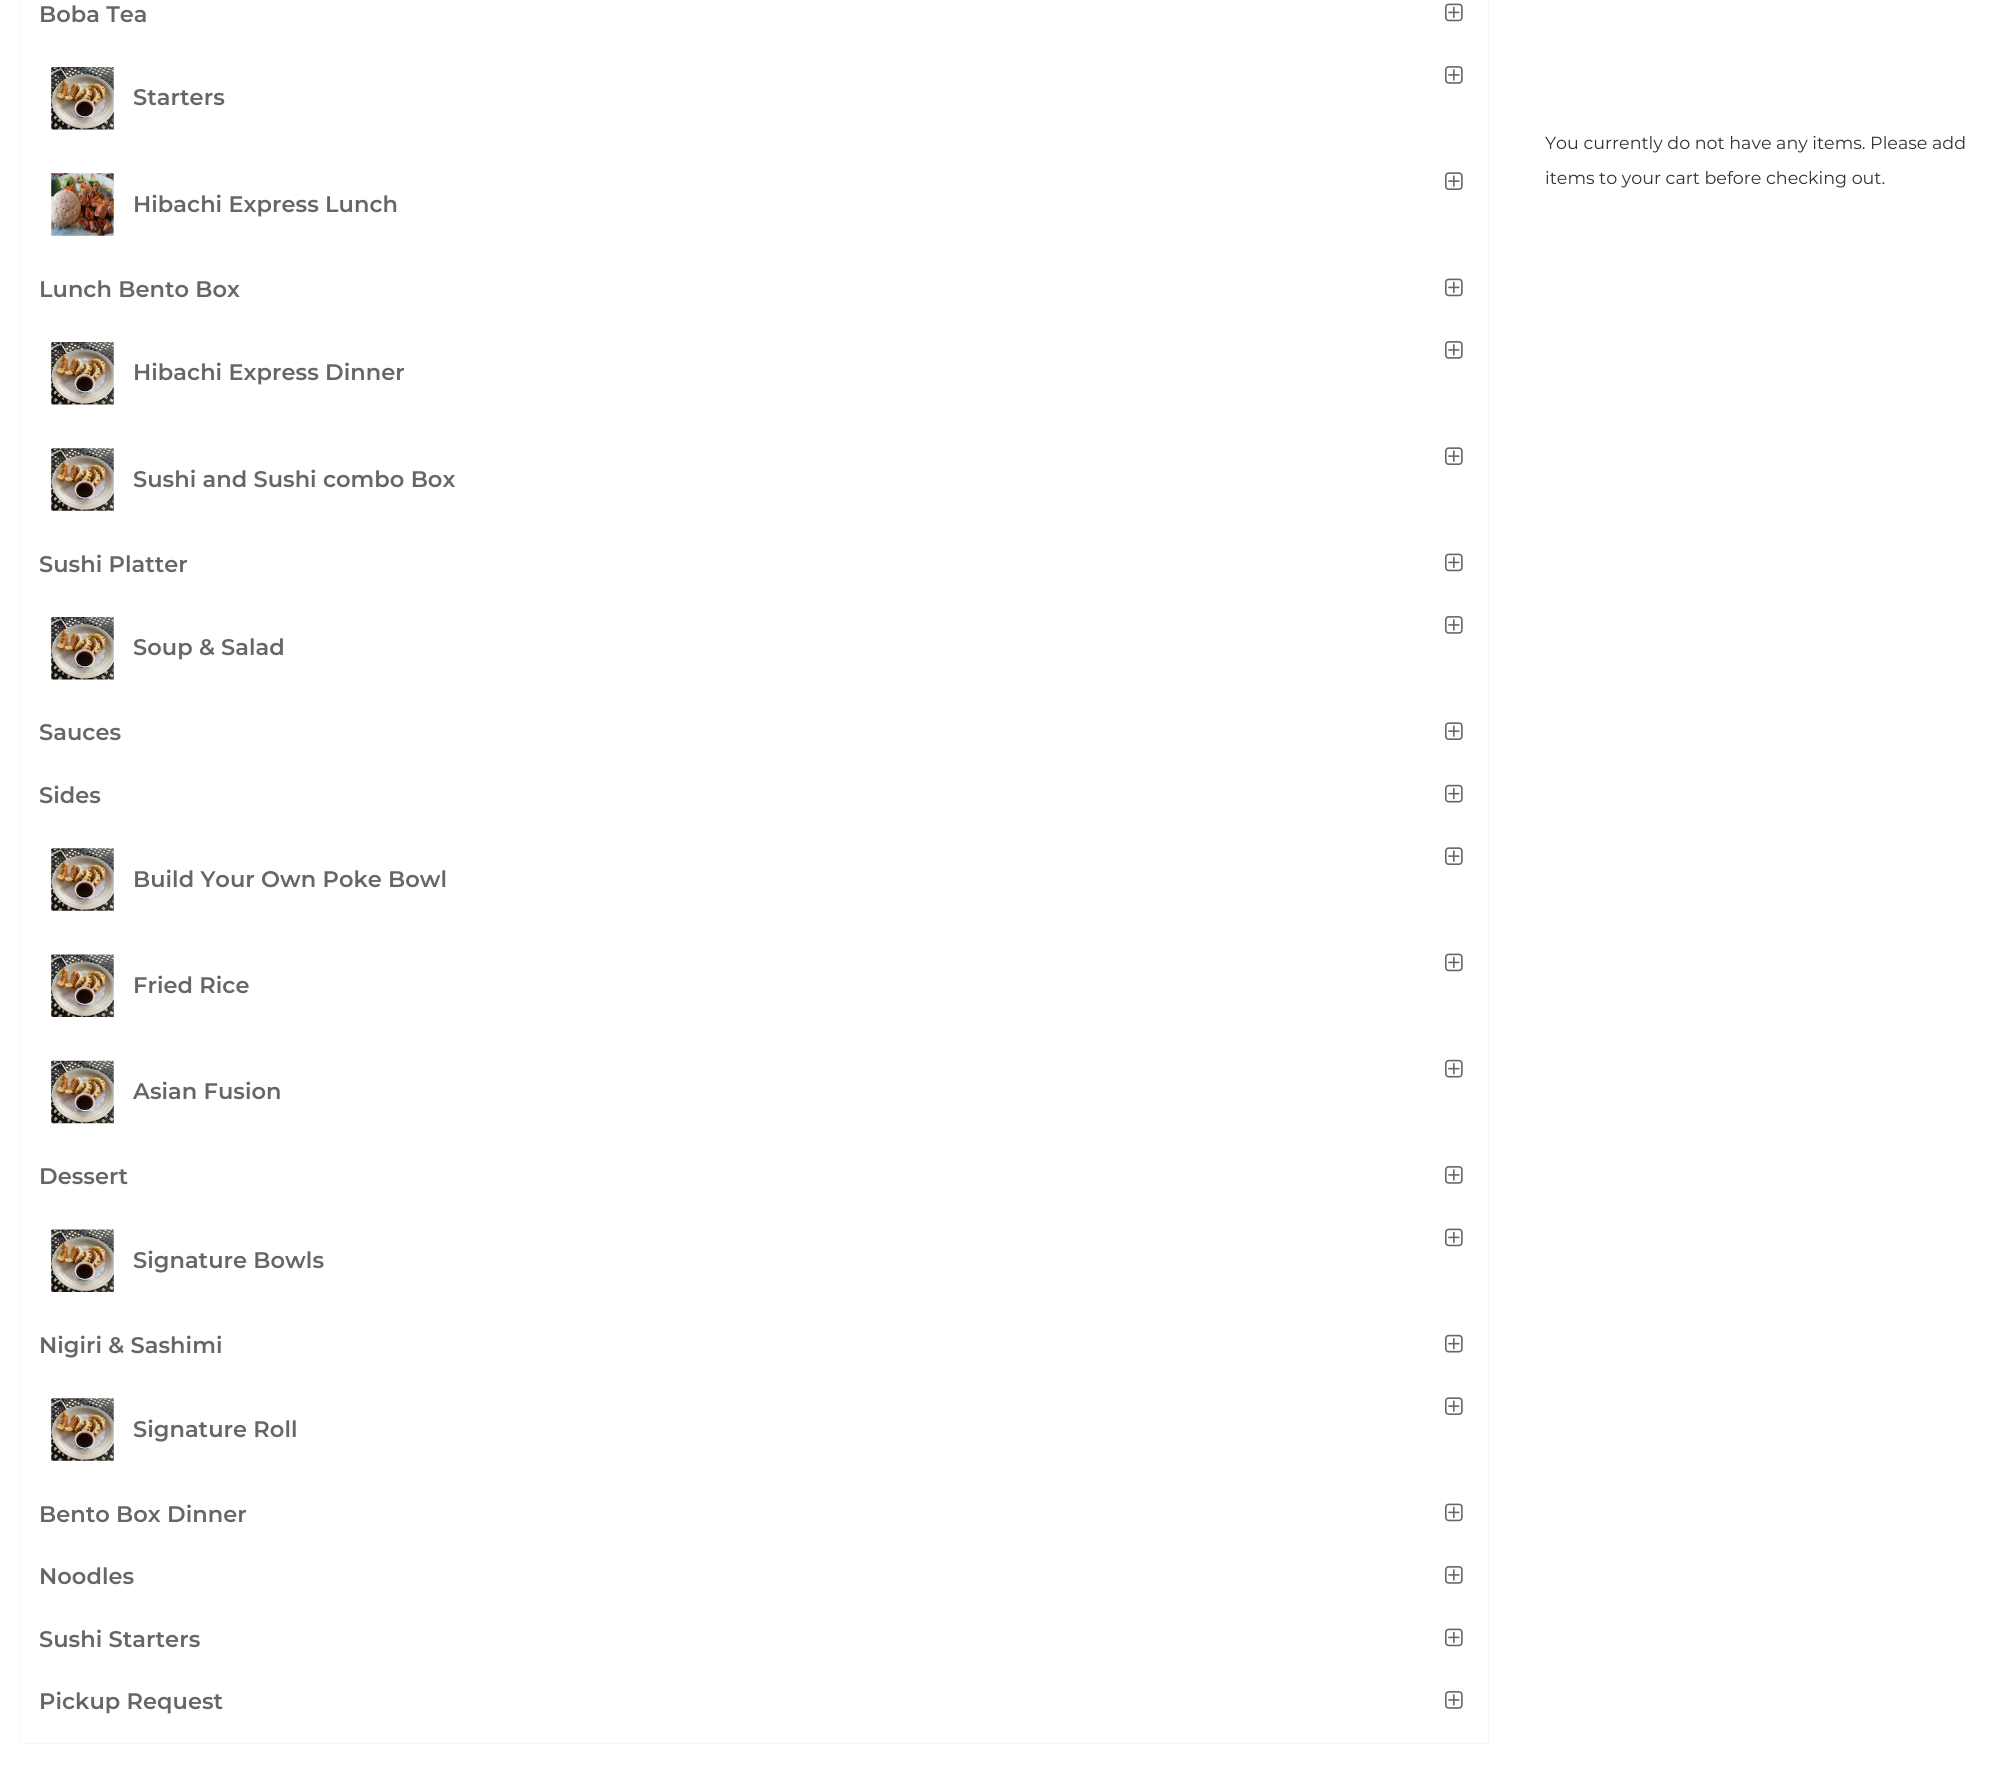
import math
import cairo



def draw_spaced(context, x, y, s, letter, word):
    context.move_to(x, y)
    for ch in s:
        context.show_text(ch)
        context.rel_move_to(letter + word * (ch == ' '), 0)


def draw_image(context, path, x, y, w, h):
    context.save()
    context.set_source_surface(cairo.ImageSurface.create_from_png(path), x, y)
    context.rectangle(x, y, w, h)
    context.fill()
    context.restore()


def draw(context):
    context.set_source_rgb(1, 1, 1)
    context.paint()
    context.rectangle(19.5, -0.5, 1469, 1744)
    context.set_source_rgb(246 / 255, 246 / 255, 246 / 255)
    context.set_line_width(1)
    context.stroke()
    draw_image(context, "images/1.png", 1445, 3, 18, 19)
    draw_image(context, "images/2.png", 51, 67, 63, 63)
    draw_image(context, "images/3.png", 1445, 66, 18, 18)
    draw_image(context, "images/4.png", 51, 173, 63, 63)
    draw_image(context, "images/5.png", 1445, 172, 18, 18)
    draw_image(context, "images/1.png", 1445, 278, 18, 19)
    draw_image(context, "images/2.png", 51, 342, 63, 63)
    draw_image(context, "images/3.png", 1445, 341, 18, 18)
    draw_image(context, "images/6.png", 51, 448, 63, 63)
    draw_image(context, "images/5.png", 1445, 447, 18, 18)
    draw_image(context, "images/1.png", 1445, 553, 18, 19)
    draw_image(context, "images/2.png", 51, 617, 63, 63)
    draw_image(context, "images/3.png", 1445, 616, 18, 18)
    draw_image(context, "images/5.png", 1445, 722, 18, 18)
    draw_image(context, "images/7.png", 1445, 784, 18, 19)
    draw_image(context, "images/8.png", 51, 848, 63, 63)
    draw_image(context, "images/5.png", 1445, 847, 18, 18)
    draw_image(context, "images/9.png", 51, 954, 63, 63)
    draw_image(context, "images/1.png", 1445, 953, 18, 19)
    draw_image(context, "images/10.png", 51, 1060, 63, 64)
    draw_image(context, "images/7.png", 1445, 1059, 18, 19)
    draw_image(context, "images/3.png", 1445, 1166, 18, 18)
    draw_image(context, "images/9.png", 51, 1229, 63, 63)
    draw_image(context, "images/1.png", 1445, 1228, 18, 19)
    draw_image(context, "images/7.png", 1445, 1334, 18, 19)
    draw_image(context, "images/8.png", 51, 1398, 63, 63)
    draw_image(context, "images/5.png", 1445, 1397, 18, 18)
    draw_image(context, "images/1.png", 1445, 1503, 18, 19)
    draw_image(context, "images/3.png", 1445, 1566, 18, 18)
    draw_image(context, "images/1.png", 1445, 1628, 18, 19)
    draw_image(context, "images/3.png", 1445, 1691, 18, 18)
    context.select_font_face("Montserrat SemiBold")
    context.set_font_size(22.5)
    context.set_source_rgb(102 / 255, 102 / 255, 102 / 255)
    draw_spaced(context, 39, 22, "Boba Tea", 0.05, 0)
    draw_spaced(context, 133, 105, "Starters", 0.05, 0)
    draw_spaced(context, 133, 212, "Hibachi Express Lunch", 0.05, 0)
    draw_spaced(context, 39, 297, "Lunch Bento Box", 0.05, 0)
    draw_spaced(context, 133, 380, "Hibachi Express Dinner", 0.05, 0)
    draw_spaced(context, 133, 487, "Sushi and Sushi combo Box", 0.05, 0)
    draw_spaced(context, 39, 572, "Sushi Platter", 0.05, 0)
    draw_spaced(context, 133, 655, "Soup & Salad", 0.05, 0)
    draw_spaced(context, 39, 740, "Sauces", 0.05, 0)
    draw_spaced(context, 39, 803, "Sides", 0.05, 0)
    draw_spaced(context, 133, 887, "Build Your Own Poke Bowl", 0.05, 0)
    draw_spaced(context, 133, 993, "Fried Rice", 0.05, 0)
    draw_spaced(context, 133, 1099, "Asian Fusion", 0.05, 0)
    draw_spaced(context, 39, 1184, "Dessert", 0.05, 0)
    draw_spaced(context, 133, 1268, "Signature Bowls", 0.05, 0)
    draw_spaced(context, 39, 1353, "Nigiri & Sashimi", 0.05, 0)
    draw_spaced(context, 133, 1437, "Signature Roll", 0.05, 0)
    draw_spaced(context, 39, 1522, "Bento Box Dinner", 0.05, 0)
    draw_spaced(context, 39, 1584, "Noodles", 0.05, 0)
    draw_spaced(context, 39, 1647, "Sushi Starters", 0.05, 0)
    draw_spaced(context, 39, 1709, "Pickup Request", 0.05, 0)
    context.select_font_face("Montserrat")
    context.set_font_size(17.5)
    context.set_source_rgb(51 / 255, 51 / 255, 51 / 255)
    context.move_to(1545, 149)
    context.show_text("You currently do not have any items. Please add")
    context.move_to(1545, 184)
    context.show_text("items to your cart before checking out.")


surface = cairo.ImageSurface(cairo.Format.RGB24, 2010, 1768)
context = cairo.Context(surface)
options = cairo.FontOptions()
options.set_hint_metrics(cairo.HintMetrics.OFF)
options.set_hint_style(cairo.HintStyle.NONE)
context.set_font_options(options)
context.set_miter_limit(4)
draw(context)
surface.write_to_png("out.png")
